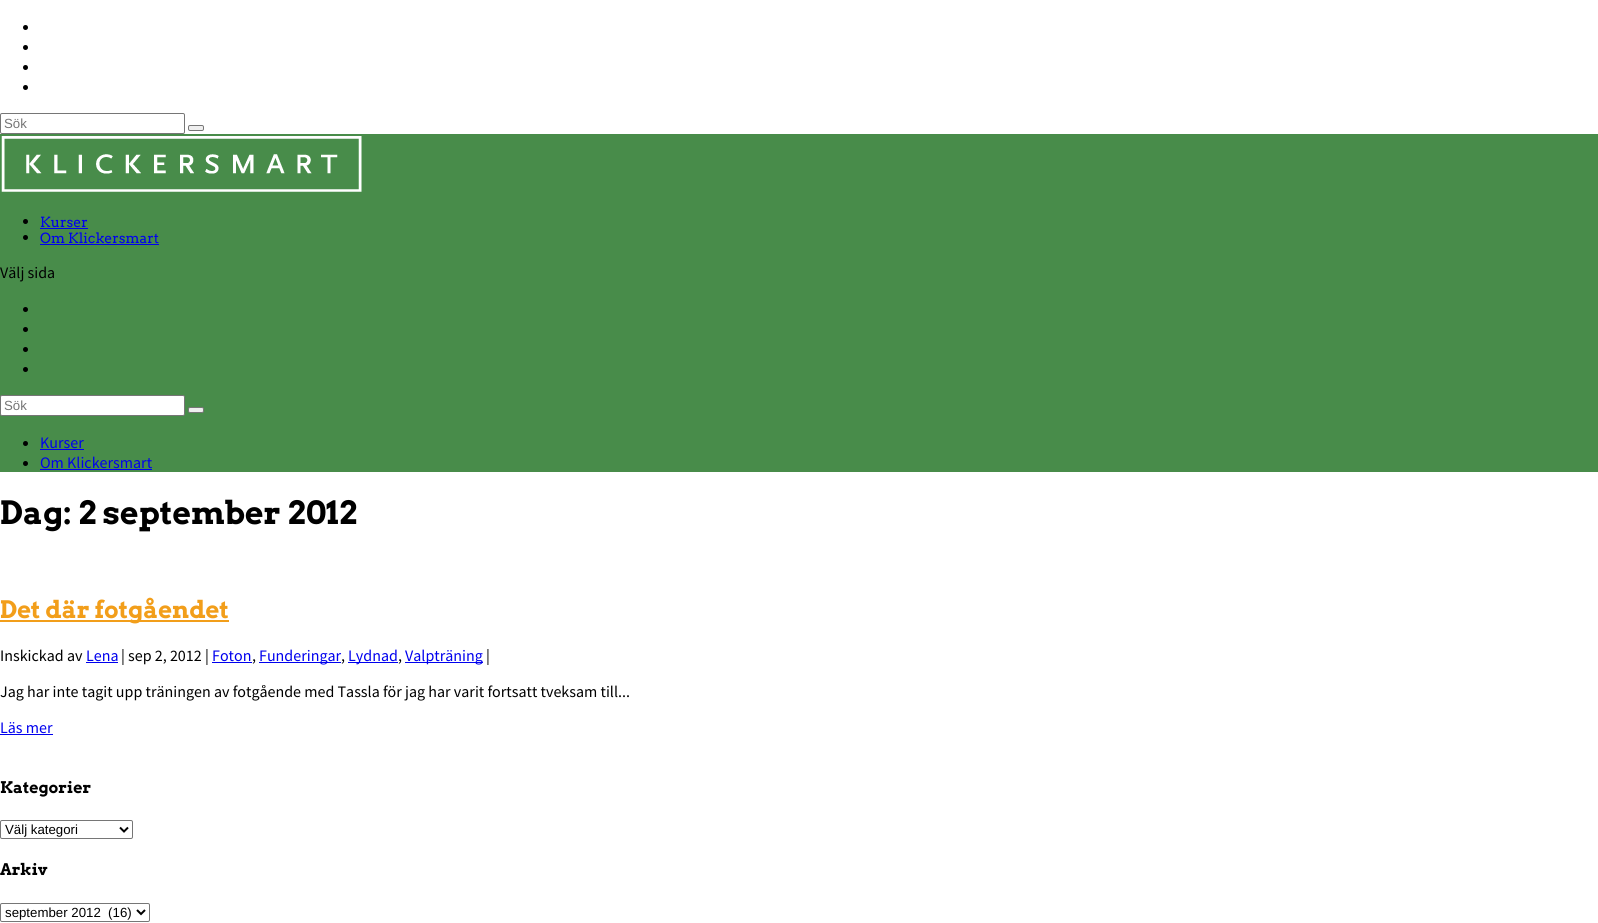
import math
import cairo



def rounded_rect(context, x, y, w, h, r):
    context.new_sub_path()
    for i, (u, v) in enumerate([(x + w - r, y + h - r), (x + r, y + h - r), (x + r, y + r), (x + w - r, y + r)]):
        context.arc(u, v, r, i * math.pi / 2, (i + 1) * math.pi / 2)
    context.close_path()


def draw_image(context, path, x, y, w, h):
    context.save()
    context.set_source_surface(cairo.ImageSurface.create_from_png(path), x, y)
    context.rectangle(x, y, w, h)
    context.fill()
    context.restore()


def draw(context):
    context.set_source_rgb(1, 1, 1)
    context.paint()
    context.set_source_rgb(0, 0, 0)
    context.arc(25.5, 27.5, 2.5, 0, 2 * math.pi)
    context.fill()
    context.arc(25.5, 47.5, 2.5, 0, 2 * math.pi)
    context.fill()
    context.arc(25.5, 67.5, 2.5, 0, 2 * math.pi)
    context.fill()
    context.arc(25.5, 87.5, 2.5, 0, 2 * math.pi)
    context.fill()
    rounded_rect(context, 0.5, 113.5, 184, 20, 1.5)
    context.set_source_rgb(118 / 255, 118 / 255, 118 / 255)
    context.set_line_width(1)
    context.stroke()
    context.set_source_rgb(239 / 255, 239 / 255, 239 / 255)
    rounded_rect(context, 188.5, 125.5, 15, 5, 1.5)
    context.fill_preserve()
    context.set_source_rgb(118 / 255, 118 / 255, 118 / 255)
    context.stroke()
    context.set_source_rgb(72 / 255, 140 / 255, 74 / 255)
    context.rectangle(0, 134, 1598, 338)
    context.fill()
    draw_image(context, "images/1.png", 1, 136, 361, 56)
    context.set_source_rgb(0, 0, 0)
    context.arc(25.5, 221.5, 2.5, 0, 2 * math.pi)
    context.fill()
    context.set_source_rgb(0, 0, 238 / 255)
    context.rectangle(40, 228, 48, 1)
    context.fill()
    context.set_source_rgb(0, 0, 0)
    context.arc(25.5, 237.5, 2.5, 0, 2 * math.pi)
    context.fill()
    context.set_source_rgb(0, 0, 238 / 255)
    context.rectangle(40, 244, 119, 1)
    context.fill()
    context.set_source_rgb(0, 0, 0)
    context.arc(25.5, 309.5, 2.5, 0, 2 * math.pi)
    context.fill()
    context.arc(25.5, 329.5, 2.5, 0, 2 * math.pi)
    context.fill()
    context.arc(25.5, 349.5, 2.5, 0, 2 * math.pi)
    context.fill()
    context.arc(25.5, 369.5, 2.5, 0, 2 * math.pi)
    context.fill()
    context.set_source_rgb(1, 1, 1)
    rounded_rect(context, 0.5, 395.5, 184, 20, 1.5)
    context.fill_preserve()
    context.set_source_rgb(118 / 255, 118 / 255, 118 / 255)
    context.stroke()
    context.set_source_rgb(239 / 255, 239 / 255, 239 / 255)
    rounded_rect(context, 188.5, 407.5, 15, 5, 1.5)
    context.fill_preserve()
    context.set_source_rgb(118 / 255, 118 / 255, 118 / 255)
    context.stroke()
    context.set_source_rgb(0, 0, 0)
    context.arc(25.5, 443.5, 2.5, 0, 2 * math.pi)
    context.fill()
    context.set_source_rgb(0, 0, 238 / 255)
    context.rectangle(40, 449, 44, 1)
    context.fill()
    context.set_source_rgb(0, 0, 0)
    context.arc(25.5, 463.5, 2.5, 0, 2 * math.pi)
    context.fill()
    context.set_source_rgb(0, 0, 238 / 255)
    context.rectangle(40, 469, 112, 1)
    context.fill()
    context.set_source_rgb(242 / 255, 158 / 255, 26 / 255)
    context.rectangle(0, 620, 229, 2)
    context.fill()
    context.set_source_rgb(0, 0, 238 / 255)
    context.rectangle(86, 662, 32, 1)
    context.fill()
    context.rectangle(212, 662, 40, 1)
    context.fill()
    context.rectangle(259, 662, 82, 1)
    context.fill()
    context.rectangle(348, 662, 50, 1)
    context.fill()
    context.rectangle(405, 662, 78, 1)
    context.fill()
    context.rectangle(0, 734, 53, 1)
    context.fill()
    rounded_rect(context, 0.5, 820.5, 132, 18, 1.5)
    context.set_source_rgb(118 / 255, 118 / 255, 118 / 255)
    context.stroke()
    context.new_path()
    context.move_to(120, 827.5)
    context.line_to(124, 831.5)
    context.line_to(128, 827.5)
    context.set_source_rgb(0, 0, 0)
    context.set_line_width(2)
    context.stroke()
    rounded_rect(context, 0.5, 903.5, 149, 18, 1.5)
    context.set_source_rgb(118 / 255, 118 / 255, 118 / 255)
    context.set_line_width(1)
    context.stroke()
    context.new_path()
    context.move_to(137, 910)
    context.line_to(141, 914)
    context.line_to(145, 910)
    context.set_source_rgb(0, 0, 0)
    context.set_line_width(2)
    context.stroke()
    context.select_font_face("Liberation Sans")
    context.set_font_size(13.25)
    context.set_source_rgb(117 / 255, 117 / 255, 117 / 255)
    context.move_to(4, 128)
    context.show_text("Sök")
    context.select_font_face("Arvo")
    context.set_font_size(14)
    context.set_source_rgb(0, 0, 238 / 255)
    context.move_to(40, 227)
    context.show_text("Kurser")
    context.move_to(40, 243)
    context.show_text("Om Klickersmart")
    context.select_font_face("Source Sans Pro")
    context.set_font_size(16)
    context.set_source_rgb(0, 0, 0)
    context.move_to(0, 278)
    context.show_text("Välj sida")
    context.select_font_face("Liberation Sans")
    context.set_font_size(13.25)
    context.set_source_rgb(117 / 255, 117 / 255, 117 / 255)
    context.move_to(4, 410)
    context.show_text("Sök")
    context.select_font_face("Source Sans Pro")
    context.set_font_size(16)
    context.set_source_rgb(0, 0, 238 / 255)
    context.move_to(40, 448)
    context.show_text("Kurser")
    context.move_to(40, 468)
    context.show_text("Om Klickersmart")
    context.select_font_face("Arvo", cairo.FontSlant.NORMAL, cairo.FontWeight.BOLD)
    context.set_font_size(32)
    context.set_source_rgb(0, 0, 0)
    context.move_to(0, 524)
    context.show_text("Dag: 2 september 2012")
    context.set_font_size(24)
    context.set_source_rgb(242 / 255, 158 / 255, 26 / 255)
    context.move_to(0, 618)
    context.show_text("Det där fotgåendet")
    context.select_font_face("Source Sans Pro")
    context.set_font_size(16)
    context.set_source_rgb(0, 0, 0)
    context.move_to(0, 661)
    context.show_text("Inskickad av")
    context.set_source_rgb(0, 0, 238 / 255)
    context.move_to(86, 661)
    context.show_text("Lena")
    context.set_source_rgb(0, 0, 0)
    context.move_to(121, 661)
    context.show_text("| sep 2, 2012 |")
    context.set_source_rgb(0, 0, 238 / 255)
    context.move_to(212, 661)
    context.show_text("Foton")
    context.set_source_rgb(0, 0, 0)
    context.move_to(252, 661)
    context.show_text(",")
    context.set_source_rgb(0, 0, 238 / 255)
    context.move_to(259, 661)
    context.show_text("Funderingar")
    context.set_source_rgb(0, 0, 0)
    context.move_to(341, 661)
    context.show_text(",")
    context.set_source_rgb(0, 0, 238 / 255)
    context.move_to(348, 661)
    context.show_text("Lydnad")
    context.set_source_rgb(0, 0, 0)
    context.move_to(398, 661)
    context.show_text(",")
    context.set_source_rgb(0, 0, 238 / 255)
    context.move_to(405, 661)
    context.show_text("Valpträning")
    context.set_source_rgb(0, 0, 0)
    context.move_to(486, 661)
    context.show_text("|")
    context.move_to(0, 697)
    context.show_text("Jag har inte tagit upp träningen av fotgående med Tassla för jag har varit fortsatt tveksam till...")
    context.set_source_rgb(0, 0, 238 / 255)
    context.move_to(0, 733)
    context.show_text("Läs mer")
    context.select_font_face("Arvo", cairo.FontSlant.NORMAL, cairo.FontWeight.BOLD)
    context.set_source_rgb(0, 0, 0)
    context.move_to(0, 793)
    context.show_text("Kategorier")
    context.select_font_face("Liberation Sans")
    context.set_font_size(13.25)
    context.move_to(5, 834)
    context.show_text("Välj kategori")
    context.select_font_face("Arvo", cairo.FontSlant.NORMAL, cairo.FontWeight.BOLD)
    context.set_font_size(16)
    context.move_to(0, 875)
    context.show_text("Arkiv")
    context.select_font_face("Liberation Sans")
    context.set_font_size(13.25)
    context.move_to(5, 917)
    context.show_text("september 2012  (16)")


surface = cairo.ImageSurface(cairo.Format.RGB24, 1598, 923)
context = cairo.Context(surface)
options = cairo.FontOptions()
options.set_hint_metrics(cairo.HintMetrics.OFF)
options.set_hint_style(cairo.HintStyle.NONE)
context.set_font_options(options)
context.set_miter_limit(4)
draw(context)
surface.write_to_png("out.png")
